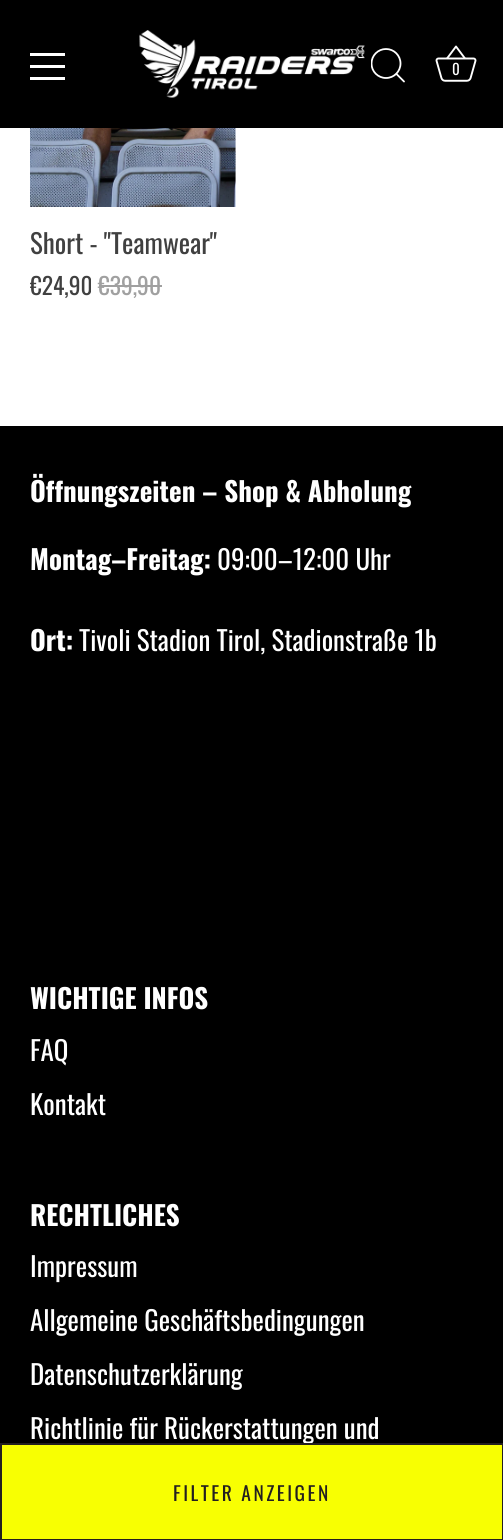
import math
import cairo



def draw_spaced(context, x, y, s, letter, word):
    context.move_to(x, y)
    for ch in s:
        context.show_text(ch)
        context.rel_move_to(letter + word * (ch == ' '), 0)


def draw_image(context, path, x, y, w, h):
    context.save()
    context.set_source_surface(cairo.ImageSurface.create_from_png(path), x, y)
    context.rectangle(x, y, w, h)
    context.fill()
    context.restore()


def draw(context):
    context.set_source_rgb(1, 1, 1)
    context.paint()
    context.set_source_rgb(0, 0, 0)
    context.rectangle(0, 0, 503, 128)
    context.fill()
    context.set_source_rgb(1, 1, 1)
    context.rectangle(30, 53, 35, 3)
    context.fill()
    context.rectangle(30, 65, 35, 3)
    context.fill()
    context.rectangle(30, 77, 35, 3)
    context.fill()
    draw_image(context, "images/1.png", 139, 30, 226, 68)
    context.save()
    context.rectangle(371, 48, 36, 36)
    context.clip()
    context.arc(386, 63.5, 14.5, 0, 2 * math.pi)
    context.set_line_width(1.8)
    context.stroke()
    context.restore()
    context.new_path()
    context.move_to(404, 81.5)
    context.line_to(396.5, 74)
    context.set_line_width(1.8)
    context.set_line_cap(cairo.LineCap.ROUND)
    context.set_line_join(cairo.LineJoin.ROUND)
    context.stroke()
    draw_image(context, "images/2.png", 435, 45, 42, 37)
    draw_image(context, "images/3.png", 30, 128, 206, 79)
    context.set_source_rgb(160 / 255, 160 / 255, 160 / 255)
    context.rectangle(99, 285, 63, 2)
    context.fill()
    context.set_source_rgb(0, 0, 0)
    context.rectangle(0, 426, 503, 1017)
    context.fill()
    context.select_font_face("Oswald")
    context.set_font_size(15)
    context.set_source_rgb(1, 1, 1)
    context.move_to(452, 75)
    context.show_text("0")
    context.set_font_size(27)
    context.set_source_rgb(64 / 255, 64 / 255, 64 / 255)
    context.move_to(30, 254)
    context.show_text("Short - \"Teamwear\"")
    context.save()
    context.rectangle(30, 0, 444, 321)
    context.clip()
    context.set_font_size(23.5)
    context.move_to(30, 295)
    context.show_text("€24,90")
    context.restore()
    context.set_font_size(23.5)
    context.set_source_rgb(160 / 255, 160 / 255, 160 / 255)
    context.move_to(98, 295)
    context.show_text("€39,90")
    context.select_font_face("Oswald", cairo.FontSlant.NORMAL, cairo.FontWeight.BOLD)
    context.set_font_size(27)
    context.set_source_rgb(1, 1, 1)
    context.move_to(30, 502)
    context.show_text("Öffnungszeiten – Shop & Abholung")
    context.move_to(30, 570)
    context.show_text("Montag–Freitag:")
    context.select_font_face("Oswald")
    context.move_to(217, 570)
    context.show_text("09:00–12:00 Uhr")
    context.select_font_face("Oswald", cairo.FontSlant.NORMAL, cairo.FontWeight.BOLD)
    context.move_to(30, 651)
    context.show_text("Ort:")
    context.select_font_face("Oswald")
    context.move_to(79, 651)
    context.show_text("Tivoli Stadion Tirol, Stadionstraße 1b")
    context.select_font_face("Oswald", cairo.FontSlant.NORMAL, cairo.FontWeight.BOLD)
    context.move_to(30, 1009)
    context.show_text("WICHTIGE INFOS")
    context.select_font_face("Oswald")
    context.move_to(30, 1061)
    context.show_text("FAQ")
    context.move_to(30, 1115)
    context.show_text("Kontakt")
    context.select_font_face("Oswald", cairo.FontSlant.NORMAL, cairo.FontWeight.BOLD)
    context.move_to(30, 1226)
    context.show_text("RECHTLICHES")
    context.select_font_face("Oswald")
    context.move_to(30, 1277)
    context.show_text("Impressum")
    context.move_to(30, 1331)
    context.show_text("Allgemeine Geschäftsbedingungen")
    context.move_to(30, 1385)
    context.show_text("Datenschutzerklärung")
    context.move_to(30, 1439)
    context.show_text("Richtlinie für Rückerstattungen und")
    context.set_source_rgb(248 / 255, 1, 2 / 255)
    context.rectangle(1, 1444, 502, 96)
    context.fill_preserve()
    context.set_source_rgb(35 / 255, 31 / 255, 32 / 255)
    context.set_line_width(2)
    context.set_line_cap(cairo.LineCap.BUTT)
    context.set_line_join(cairo.LineJoin.MITER)
    context.stroke()
    context.set_font_size(19.5)
    draw_spaced(context, 173, 1501, "FILTER ANZEIGEN", 2.5, 0)


surface = cairo.ImageSurface(cairo.Format.RGB24, 503, 1540)
context = cairo.Context(surface)
options = cairo.FontOptions()
options.set_hint_metrics(cairo.HintMetrics.OFF)
options.set_hint_style(cairo.HintStyle.NONE)
context.set_font_options(options)
context.set_miter_limit(4)
draw(context)
surface.write_to_png("out.png")
